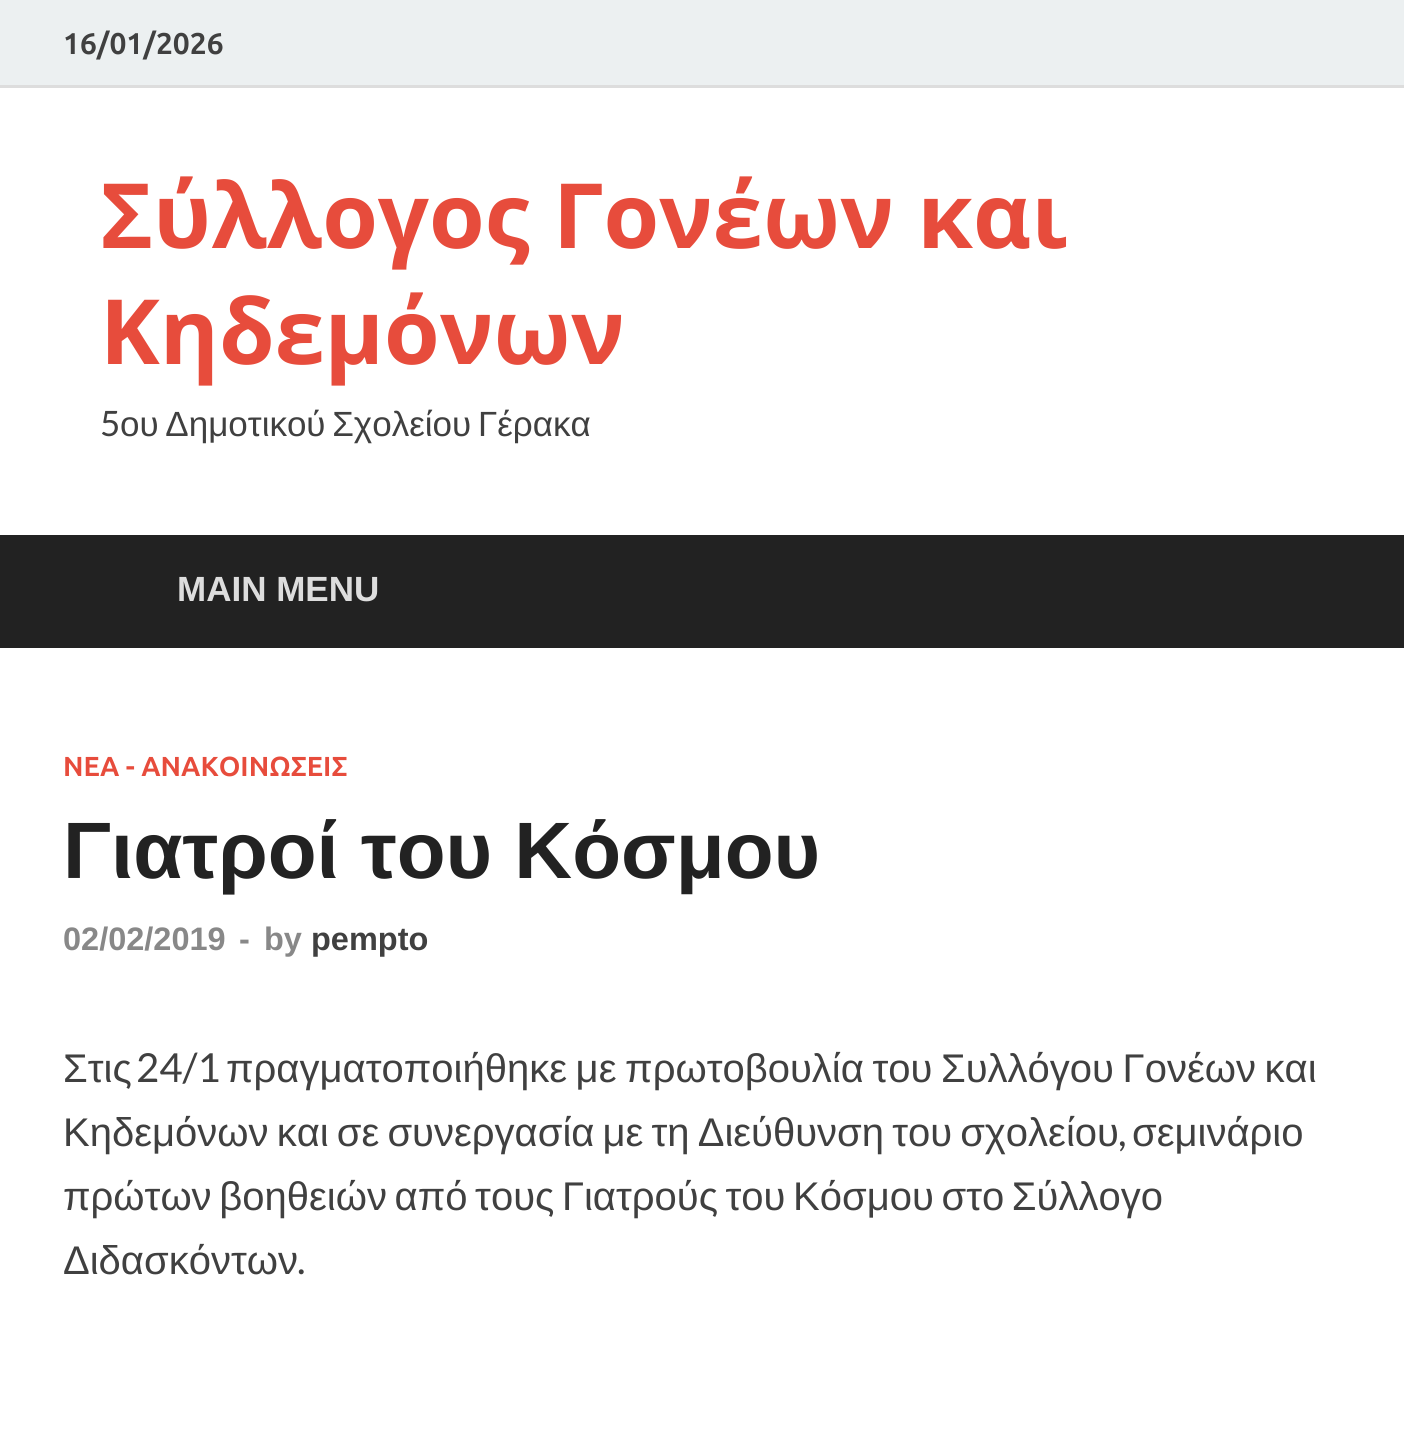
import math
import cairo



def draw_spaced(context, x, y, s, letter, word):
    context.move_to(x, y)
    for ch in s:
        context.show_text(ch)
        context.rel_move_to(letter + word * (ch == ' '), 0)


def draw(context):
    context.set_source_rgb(1, 1, 1)
    context.paint()
    context.set_source_rgb(236 / 255, 240 / 255, 241 / 255)
    context.rectangle(0, 0, 1404, 85)
    context.fill()
    context.set_source_rgb(221 / 255, 221 / 255, 221 / 255)
    context.rectangle(0, 85, 1404, 3)
    context.fill()
    context.set_source_rgb(34 / 255, 34 / 255, 34 / 255)
    context.rectangle(0, 535, 1404, 113)
    context.fill()
    context.select_font_face("Ubuntu", cairo.FontSlant.NORMAL, cairo.FontWeight.BOLD)
    context.set_font_size(30)
    context.set_source_rgb(64 / 255, 64 / 255, 64 / 255)
    context.move_to(63, 54)
    context.show_text("16/01/2026")
    context.select_font_face("Open Sans", cairo.FontSlant.NORMAL, cairo.FontWeight.BOLD)
    context.set_font_size(90)
    context.set_source_rgb(231 / 255, 76 / 255, 60 / 255)
    context.move_to(100, 248)
    context.show_text("Σύλλογος Γονέων και")
    context.move_to(100, 364)
    context.show_text("Κηδεμόνων")
    context.select_font_face("Lato")
    context.set_font_size(35)
    context.set_source_rgb(64 / 255, 64 / 255, 64 / 255)
    context.move_to(100, 436)
    context.show_text("5")
    context.select_font_face("Liberation Sans")
    draw_spaced(context, 120, 436, "ου Δημοτικού Σχολείου Γέρακα", 0, -3)
    context.select_font_face("Liberation Sans", cairo.FontSlant.NORMAL, cairo.FontWeight.BOLD)
    context.set_source_rgb(221 / 255, 221 / 255, 221 / 255)
    context.move_to(177, 601)
    context.show_text("MAIN MENU")
    context.select_font_face("Ubuntu", cairo.FontSlant.NORMAL, cairo.FontWeight.BOLD)
    context.set_font_size(27.5)
    context.set_source_rgb(231 / 255, 76 / 255, 60 / 255)
    context.move_to(63, 776)
    context.show_text("ΝΕΑ - ΑΝΑΚΟΙΝΩΣΕΙΣ")
    context.select_font_face("Liberation Sans", cairo.FontSlant.NORMAL, cairo.FontWeight.BOLD)
    context.set_font_size(80)
    context.set_source_rgb(34 / 255, 34 / 255, 34 / 255)
    context.move_to(63, 878)
    context.show_text("Γιατροί του Κόσμου")
    context.set_font_size(32.5)
    context.set_source_rgb(136 / 255, 136 / 255, 136 / 255)
    context.move_to(63, 950)
    context.show_text("02/02/2019")
    context.move_to(239, 950)
    context.show_text("-")
    context.move_to(264, 950)
    context.show_text("by")
    context.set_source_rgb(64 / 255, 64 / 255, 64 / 255)
    context.move_to(311, 950)
    context.show_text("pempto")
    context.select_font_face("Liberation Sans")
    context.set_font_size(40)
    context.move_to(63, 1082)
    context.show_text("Στις")
    context.select_font_face("Lato")
    context.move_to(136, 1082)
    context.show_text("24/1")
    context.select_font_face("Liberation Sans")
    draw_spaced(context, 226, 1082, "πραγματοποιήθηκε με πρωτοβουλία του Συλλόγου Γονέων και", 0, -2.5)
    draw_spaced(context, 63, 1146, "Κηδεμόνων και σε συνεργασία με τη Διεύθυνση του σχολείου", 0, -3)
    context.select_font_face("Lato")
    context.move_to(1118, 1146)
    context.show_text(",")
    context.select_font_face("Liberation Sans")
    context.move_to(1132, 1146)
    context.show_text("σεμινάριο")
    draw_spaced(context, 63, 1210, "πρώτων βοηθειών από τους Γιατρούς του Κόσμου στο Σύλλογο", 0, -3.5)
    context.move_to(63, 1274)
    context.show_text("Διδασκόντων")
    context.select_font_face("Lato")
    context.move_to(297, 1274)
    context.show_text(".")


surface = cairo.ImageSurface(cairo.Format.RGB24, 1404, 1433)
context = cairo.Context(surface)
options = cairo.FontOptions()
options.set_hint_metrics(cairo.HintMetrics.OFF)
options.set_hint_style(cairo.HintStyle.NONE)
context.set_font_options(options)
context.set_miter_limit(4)
draw(context)
surface.write_to_png("out.png")
